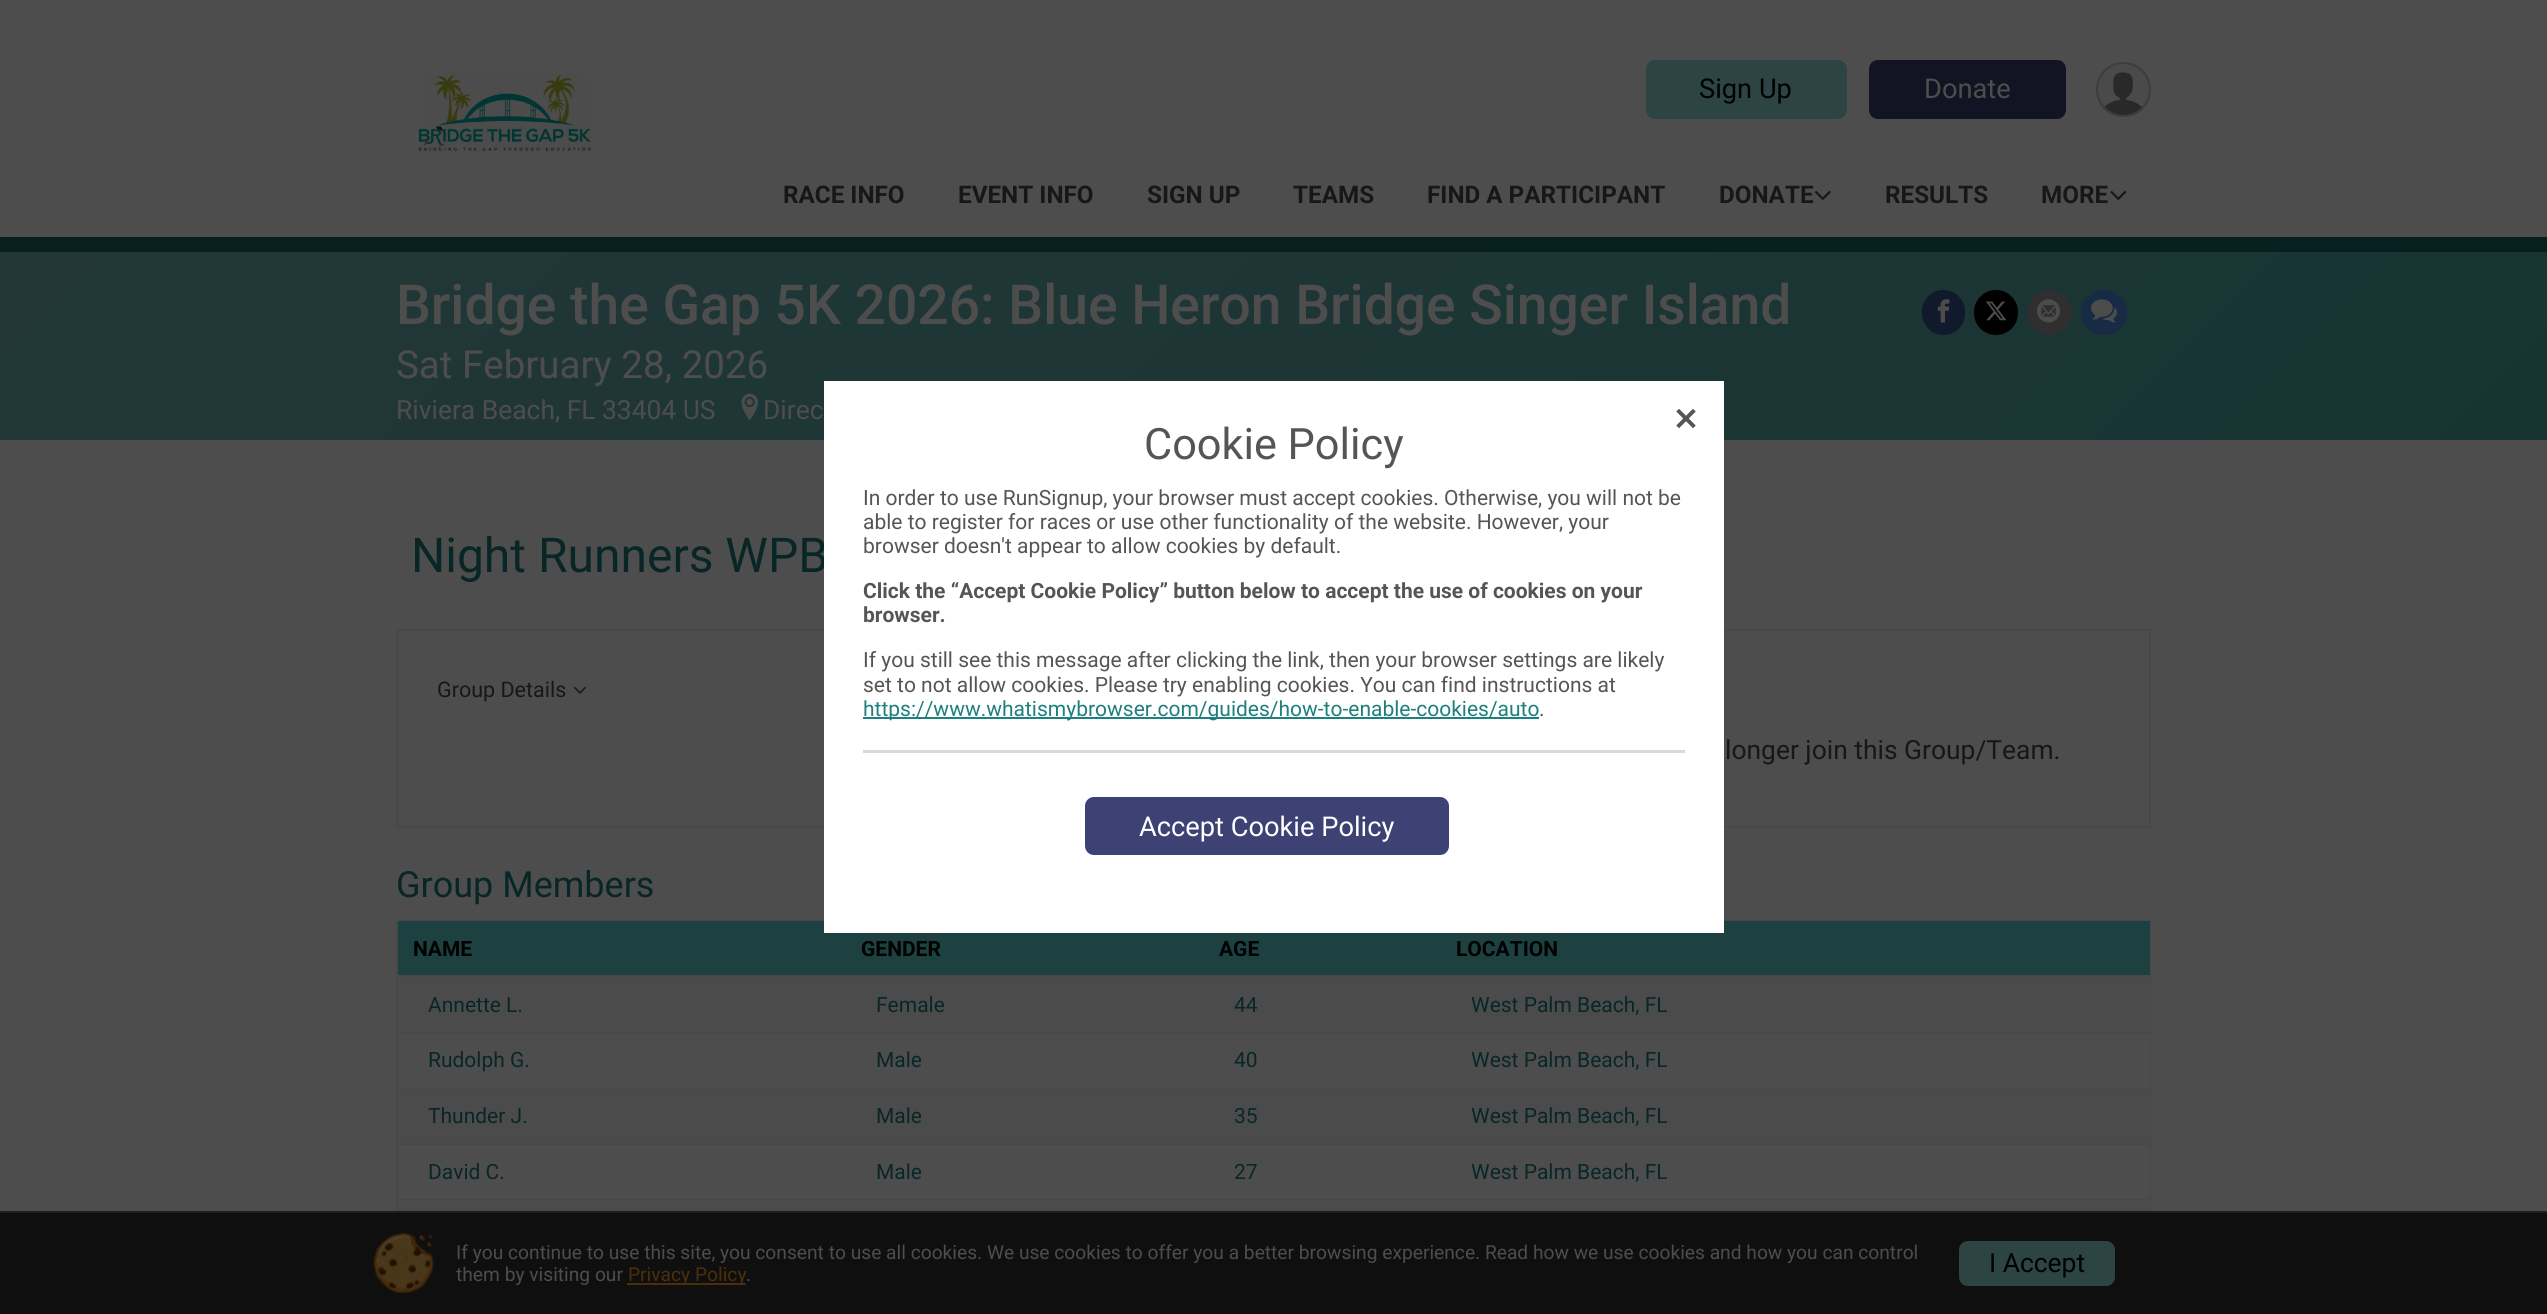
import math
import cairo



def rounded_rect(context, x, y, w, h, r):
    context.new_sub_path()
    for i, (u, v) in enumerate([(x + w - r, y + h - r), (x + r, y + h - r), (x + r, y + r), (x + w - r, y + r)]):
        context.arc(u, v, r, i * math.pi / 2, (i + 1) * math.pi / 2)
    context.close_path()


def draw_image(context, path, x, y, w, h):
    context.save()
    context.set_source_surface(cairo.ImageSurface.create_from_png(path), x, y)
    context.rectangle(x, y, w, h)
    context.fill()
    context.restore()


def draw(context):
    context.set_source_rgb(77 / 255, 77 / 255, 77 / 255)
    context.paint()
    draw_image(context, "images/1.png", 418, 73, 173, 79)
    context.set_source_rgb(44 / 255, 69 / 255, 68 / 255)
    rounded_rect(context, 1646, 60, 201, 59, 9)
    context.fill()
    context.set_source_rgb(19 / 255, 20 / 255, 35 / 255)
    rounded_rect(context, 1869, 60, 197, 59, 9)
    context.fill()
    draw_image(context, "images/2.png", 2097, 63, 53, 53)
    context.arc(2123.5, 89.5, 26.5, 0, 2 * math.pi)
    context.set_source_rgb(61 / 255, 61 / 255, 61 / 255)
    context.stroke()
    draw_image(context, "images/3.png", 1814, 190, 17, 11)
    draw_image(context, "images/4.png", 2110, 190, 17, 11)
    gradient = cairo.LinearGradient(1957, 1029, 590, -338)
    gradient.add_color_stop_rgba(0, 23 / 255, 52 / 255, 51 / 255, 1)
    gradient.add_color_stop_rgba(1, 35 / 255, 55 / 255, 55 / 255, 1)
    context.set_source(gradient)
    context.rectangle(0, 252, 2547, 188)
    context.fill()
    context.set_source_rgb(7 / 255, 31 / 255, 31 / 255)
    context.rectangle(0, 237, 2547, 15)
    context.fill()
    draw_image(context, "images/5.png", 741, 393, 17, 27)
    context.set_source_rgb(17 / 255, 25 / 255, 45 / 255)
    rounded_rect(context, 1922, 290, 43, 45, 21.5)
    context.fill()
    draw_image(context, "images/6.png", 1937, 299, 13, 24)
    context.set_source_rgb(0, 0, 0)
    rounded_rect(context, 1974, 290, 44, 45, 22)
    context.fill()
    draw_image(context, "images/7.png", 1985, 301, 22, 20)
    context.set_source_rgb(47 / 255, 47 / 255, 47 / 255)
    context.arc(2049.5, 312.5, 22.5, 0, 2 * math.pi)
    context.fill()
    draw_image(context, "images/8.png", 2037, 299, 24, 24)
    context.set_source_rgb(23 / 255, 44 / 255, 68 / 255)
    rounded_rect(context, 2081, 290, 46, 45, 22.5)
    context.fill()
    draw_image(context, "images/9.png", 2091, 299, 26, 24)
    context.rectangle(397, 630, 1051, 197)
    context.set_source_rgb(72 / 255, 72 / 255, 72 / 255)
    context.stroke()
    draw_image(context, "images/10.png", 574, 686, 12, 8)
    context.rectangle(1488, 630, 662, 197)
    context.stroke()
    context.rectangle(396, 920, 1755, 291)
    context.fill()
    context.set_source_rgb(28 / 255, 65 / 255, 64 / 255)
    context.rectangle(398, 921, 1752, 54)
    context.fill()
    context.set_source_rgb(75 / 255, 75 / 255, 75 / 255)
    context.rectangle(398, 977, 1752, 55)
    context.fill()
    context.set_source_rgb(77 / 255, 77 / 255, 77 / 255)
    context.rectangle(398, 1034, 1752, 54)
    context.fill()
    context.set_source_rgb(75 / 255, 75 / 255, 75 / 255)
    context.rectangle(398, 1089, 1752, 54)
    context.fill()
    context.set_source_rgb(77 / 255, 77 / 255, 77 / 255)
    context.rectangle(398, 1145, 1752, 54)
    context.fill()
    context.set_source_rgb(75 / 255, 75 / 255, 75 / 255)
    context.rectangle(398, 1200, 1752, 11)
    context.fill()
    context.set_source_rgb(15 / 255, 15 / 255, 15 / 255)
    context.rectangle(0, 1213, 2547, 101)
    context.fill()
    context.set_source_rgb(31 / 255, 31 / 255, 31 / 255)
    context.rectangle(0, 1211, 2547, 2)
    context.fill()
    draw_image(context, "images/12.png", 373, 1233, 61, 61)
    context.set_source_rgb(76 / 255, 46 / 255, 11 / 255)
    context.rectangle(627, 1283, 119, 2)
    context.fill()
    context.set_source_rgb(44 / 255, 69 / 255, 68 / 255)
    rounded_rect(context, 1959, 1241, 156, 45, 9)
    context.fill()
    context.select_font_face("Roboto")
    context.set_font_size(27.25)
    context.set_source_rgb(0, 0, 0)
    context.move_to(1699, 98)
    context.show_text("Sign Up")
    context.set_source_rgb(77 / 255, 77 / 255, 77 / 255)
    context.move_to(1924, 98)
    context.show_text("Donate")
    context.select_font_face("Roboto", cairo.FontSlant.NORMAL, cairo.FontWeight.BOLD)
    context.set_font_size(24.25)
    context.set_source_rgb(23 / 255, 23 / 255, 23 / 255)
    context.move_to(783, 203)
    context.show_text("RACE INFO")
    context.move_to(958, 203)
    context.show_text("EVENT INFO")
    context.move_to(1147, 203)
    context.show_text("SIGN UP")
    context.move_to(1293, 203)
    context.show_text("TEAMS")
    context.move_to(1427, 203)
    context.show_text("FIND A PARTICIPANT")
    context.move_to(1719, 203)
    context.show_text("DONATE")
    context.move_to(1885, 203)
    context.show_text("RESULTS")
    context.move_to(2041, 203)
    context.show_text("MORE")
    context.select_font_face("Roboto Medium")
    context.set_font_size(55.2)
    context.set_source_rgb(77 / 255, 77 / 255, 77 / 255)
    context.move_to(396, 324)
    context.show_text("Bridge the Gap 5K 2026: Blue Heron Bridge Singer Island")
    context.select_font_face("Roboto")
    context.set_font_size(38.5)
    context.move_to(396, 378)
    context.show_text("Sat February 28, 2026")
    context.set_font_size(26.4)
    context.move_to(396, 419)
    context.show_text("Riviera Beach, FL 33404 US")
    context.move_to(763, 419)
    context.show_text("Direc")
    context.set_font_size(48)
    context.set_source_rgb(9 / 255, 38 / 255, 38 / 255)
    context.move_to(411, 572)
    context.show_text("Night Runners WPB")
    context.set_font_size(21.5)
    context.set_source_rgb(23 / 255, 23 / 255, 23 / 255)
    context.move_to(437, 697)
    context.show_text("Group Details")
    context.set_font_size(26.4)
    context.move_to(1725, 759)
    context.show_text("longer join this Group/Team.")
    context.set_font_size(36)
    context.set_source_rgb(9 / 255, 38 / 255, 38 / 255)
    context.move_to(396, 897)
    context.show_text("Group Members")
    context.select_font_face("Roboto", cairo.FontSlant.NORMAL, cairo.FontWeight.BOLD)
    context.set_font_size(21)
    context.set_source_rgb(0, 0, 0)
    context.move_to(413, 956)
    context.show_text("NAME")
    context.move_to(861, 956)
    context.show_text("GENDER")
    context.move_to(1219, 956)
    context.show_text("AGE")
    context.move_to(1456, 956)
    context.show_text("LOCATION")
    context.select_font_face("Roboto")
    context.set_source_rgb(9 / 255, 38 / 255, 38 / 255)
    context.move_to(428, 1012)
    context.show_text("Annette L.")
    context.move_to(876, 1012)
    context.show_text("Female")
    context.move_to(1234, 1012)
    context.show_text("44")
    context.move_to(1471, 1012)
    context.show_text("West Palm Beach, FL")
    context.move_to(428, 1067)
    context.show_text("Rudolph G.")
    context.move_to(876, 1067)
    context.show_text("Male")
    context.move_to(1234, 1067)
    context.show_text("40")
    context.move_to(1471, 1067)
    context.show_text("West Palm Beach, FL")
    context.move_to(428, 1123)
    context.show_text("Thunder J.")
    context.move_to(876, 1123)
    context.show_text("Male")
    context.move_to(1234, 1123)
    context.show_text("35")
    context.move_to(1471, 1123)
    context.show_text("West Palm Beach, FL")
    context.move_to(428, 1179)
    context.show_text("David C.")
    context.move_to(876, 1179)
    context.show_text("Male")
    context.move_to(1234, 1179)
    context.show_text("27")
    context.move_to(1471, 1179)
    context.show_text("West Palm Beach, FL")
    context.rectangle(825, 382, 898, 550)
    context.set_source_rgb(1, 1, 1)
    context.stroke()
    context.rectangle(826, 383, 896, 548)
    context.fill()
    draw_image(context, "images/11.png", 1676, 408, 20, 21)
    context.set_font_size(43.25)
    context.set_source_rgb(85 / 255, 85 / 255, 85 / 255)
    context.move_to(1144, 459)
    context.show_text("Cookie Policy")
    context.set_font_size(21)
    context.move_to(863, 505)
    context.show_text("In order to use RunSignup, your browser must accept cookies. Otherwise, you will not be")
    context.move_to(863, 529)
    context.show_text("able to register for races or use other functionality of the website. However, your")
    context.move_to(863, 553)
    context.show_text("browser doesn't appear to allow cookies by default.")
    context.select_font_face("Roboto", cairo.FontSlant.NORMAL, cairo.FontWeight.BOLD)
    context.move_to(863, 598)
    context.show_text("Click the “Accept Cookie Policy” button below to accept the use of cookies on your")
    context.move_to(863, 622)
    context.show_text("browser.")
    context.select_font_face("Roboto")
    context.move_to(863, 667)
    context.show_text("If you still see this message after clicking the link, then your browser settings are likely")
    context.move_to(863, 692)
    context.show_text("set to not allow cookies. Please try enabling cookies. You can find instructions at")
    context.set_source_rgb(30 / 255, 128 / 255, 126 / 255)
    context.rectangle(863, 717, 676, 2)
    context.fill()
    context.move_to(863, 716)
    context.show_text("https://www.whatismybrowser.com/guides/how-to-enable-cookies/auto")
    context.set_source_rgb(85 / 255, 85 / 255, 85 / 255)
    context.move_to(1539, 716)
    context.show_text(".")
    context.set_source_rgb(211 / 255, 219 / 255, 223 / 255)
    context.rectangle(863, 750, 822, 3)
    context.fill()
    context.set_source_rgb(62 / 255, 65 / 255, 116 / 255)
    rounded_rect(context, 1085, 797, 364, 58, 9)
    context.fill()
    context.set_font_size(27.25)
    context.set_source_rgb(1, 1, 1)
    context.move_to(1139, 836)
    context.show_text("Accept Cookie Policy")
    context.set_font_size(19.2)
    context.set_source_rgb(77 / 255, 77 / 255, 77 / 255)
    context.move_to(456, 1259)
    context.show_text("If you continue to use this site, you consent to use all cookies. We use cookies to offer you a better browsing experience. Read how we use cookies and how you can control")
    context.move_to(456, 1281)
    context.show_text("them by visiting our")
    context.set_source_rgb(76 / 255, 46 / 255, 11 / 255)
    context.move_to(628, 1281)
    context.show_text("Privacy Policy")
    context.set_source_rgb(77 / 255, 77 / 255, 77 / 255)
    context.move_to(746, 1281)
    context.show_text(".")
    context.set_font_size(26.4)
    context.set_source_rgb(0, 0, 0)
    context.move_to(1989, 1272)
    context.show_text("I Accept")


surface = cairo.ImageSurface(cairo.Format.RGB24, 2547, 1314)
context = cairo.Context(surface)
options = cairo.FontOptions()
options.set_hint_metrics(cairo.HintMetrics.OFF)
options.set_hint_style(cairo.HintStyle.NONE)
context.set_font_options(options)
context.set_miter_limit(4)
draw(context)
surface.write_to_png("out.png")
